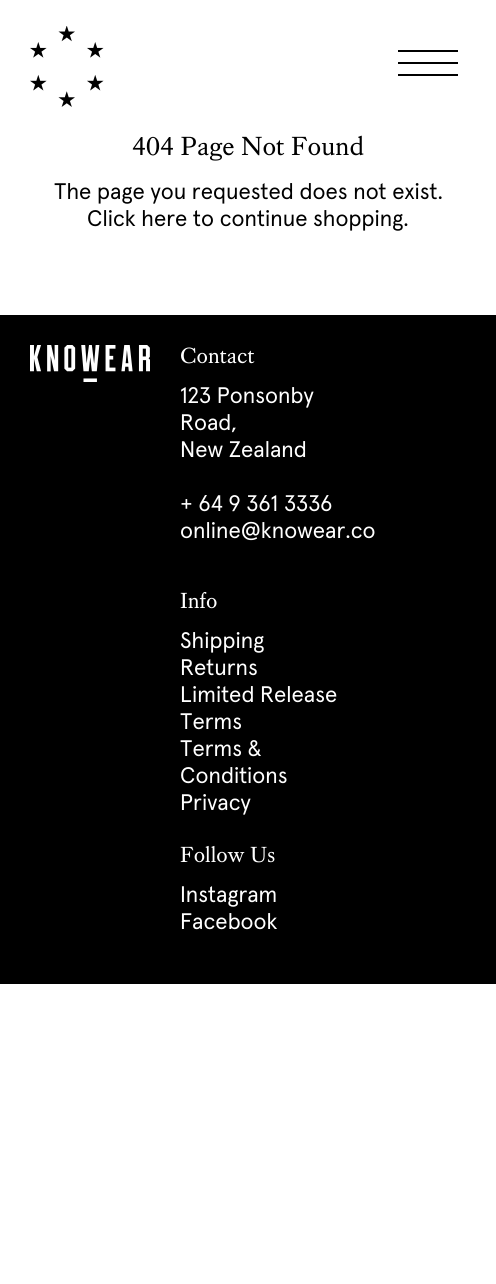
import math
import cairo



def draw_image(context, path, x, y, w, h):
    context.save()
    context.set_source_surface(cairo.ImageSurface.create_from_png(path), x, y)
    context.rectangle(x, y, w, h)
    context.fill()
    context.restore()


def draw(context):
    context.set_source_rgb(1, 1, 1)
    context.paint()
    draw_image(context, "images/1.png", 30, 26, 74, 81)
    context.set_source_rgb(0, 0, 0)
    context.set_fill_rule(cairo.FillRule.EVEN_ODD)
    context.new_path()
    context.move_to(458, 52)
    context.line_to(398, 52)
    context.line_to(398, 50)
    context.line_to(458, 50)
    context.close_path()
    context.move_to(458, 76)
    context.line_to(398, 76)
    context.line_to(398, 74)
    context.line_to(458, 74)
    context.close_path()
    context.move_to(398, 64)
    context.line_to(458, 64)
    context.line_to(458, 62)
    context.line_to(398, 62)
    context.close_path()
    context.fill()
    context.rectangle(0, 315, 496, 669)
    context.fill()
    draw_image(context, "images/2.png", 30, 345, 120, 37)
    context.select_font_face("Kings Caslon")
    context.set_font_size(27)
    context.move_to(132, 155)
    context.show_text("404 Page Not Found")
    context.select_font_face("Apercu")
    context.set_font_size(22.5)
    context.move_to(54, 199)
    context.show_text("The page you requested does not exist.")
    context.move_to(87, 226)
    context.show_text("Click here to continue shopping.")
    context.select_font_face("Kings Caslon")
    context.set_source_rgb(1, 1, 1)
    context.move_to(180, 363)
    context.show_text("Contact")
    context.select_font_face("Apercu")
    context.move_to(180, 403)
    context.show_text("123 Ponsonby")
    context.move_to(180, 430)
    context.show_text("Road,")
    context.move_to(180, 457)
    context.show_text("New Zealand")
    context.move_to(180, 511)
    context.show_text("+ 64 9 361 3336")
    context.move_to(180, 538)
    context.show_text("online@knowear.co")
    context.select_font_face("Kings Caslon")
    context.move_to(180, 608)
    context.show_text("Info")
    context.select_font_face("Apercu")
    context.move_to(180, 648)
    context.show_text("Shipping")
    context.move_to(180, 675)
    context.show_text("Returns")
    context.move_to(180, 702)
    context.show_text("Limited Release")
    context.move_to(180, 729)
    context.show_text("Terms")
    context.move_to(180, 756)
    context.show_text("Terms &")
    context.move_to(180, 783)
    context.show_text("Conditions")
    context.move_to(180, 810)
    context.show_text("Privacy")
    context.select_font_face("Kings Caslon")
    context.move_to(180, 862)
    context.show_text("Follow Us")
    context.select_font_face("Apercu")
    context.move_to(180, 902)
    context.show_text("Instagram")
    context.move_to(180, 929)
    context.show_text("Facebook")


surface = cairo.ImageSurface(cairo.Format.RGB24, 496, 1284)
context = cairo.Context(surface)
options = cairo.FontOptions()
options.set_hint_metrics(cairo.HintMetrics.OFF)
options.set_hint_style(cairo.HintStyle.NONE)
context.set_font_options(options)
context.set_miter_limit(4)
draw(context)
surface.write_to_png("out.png")
